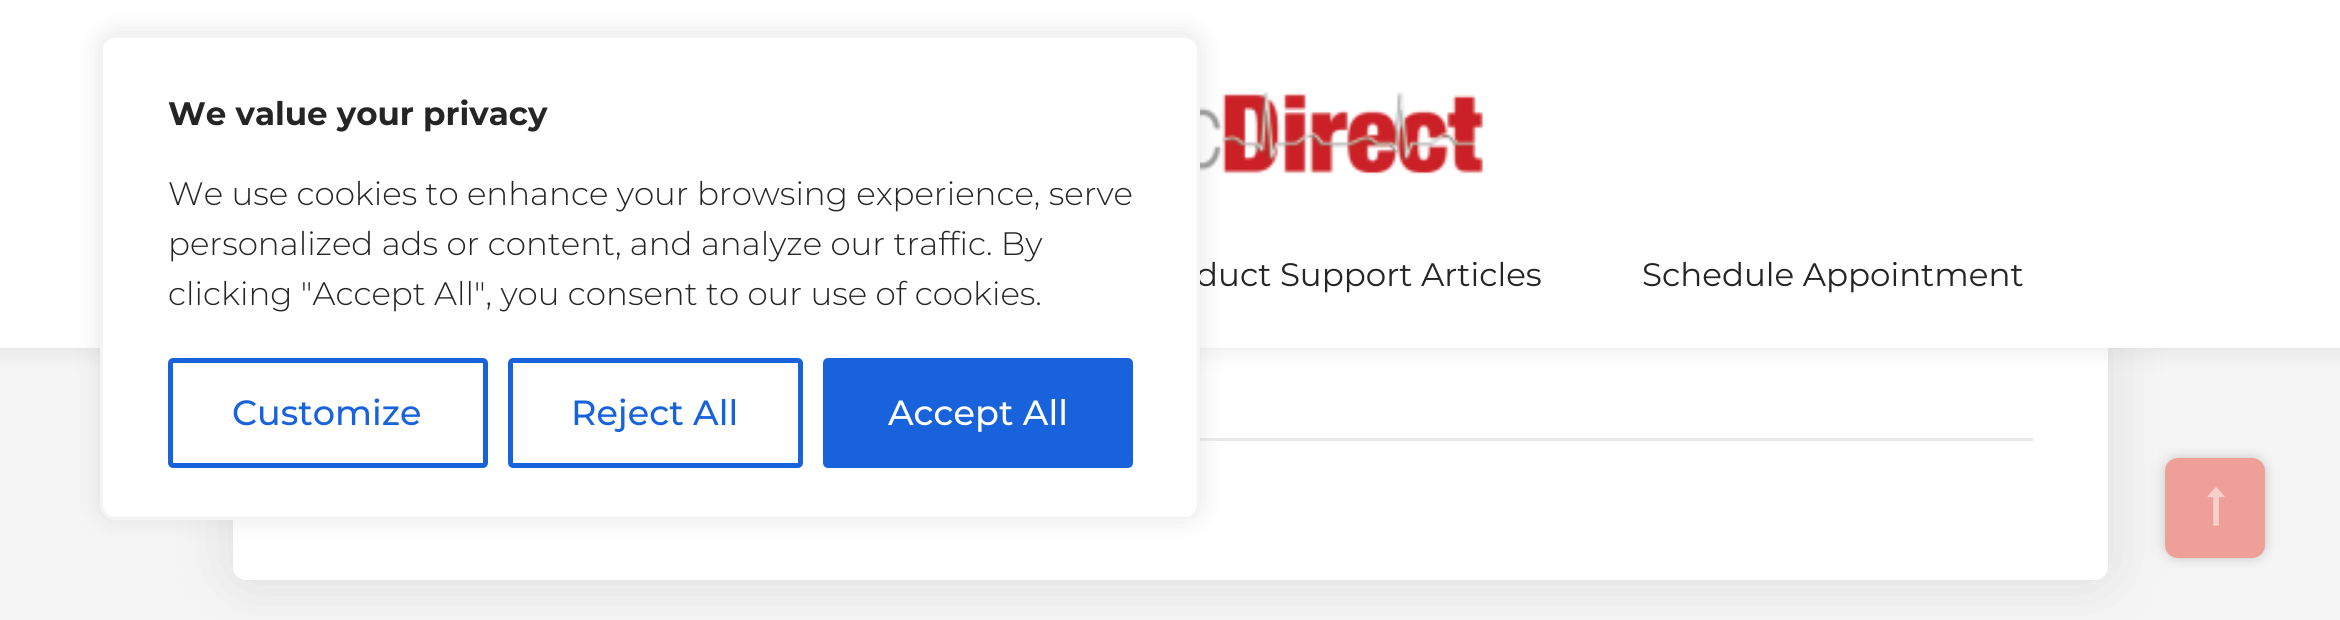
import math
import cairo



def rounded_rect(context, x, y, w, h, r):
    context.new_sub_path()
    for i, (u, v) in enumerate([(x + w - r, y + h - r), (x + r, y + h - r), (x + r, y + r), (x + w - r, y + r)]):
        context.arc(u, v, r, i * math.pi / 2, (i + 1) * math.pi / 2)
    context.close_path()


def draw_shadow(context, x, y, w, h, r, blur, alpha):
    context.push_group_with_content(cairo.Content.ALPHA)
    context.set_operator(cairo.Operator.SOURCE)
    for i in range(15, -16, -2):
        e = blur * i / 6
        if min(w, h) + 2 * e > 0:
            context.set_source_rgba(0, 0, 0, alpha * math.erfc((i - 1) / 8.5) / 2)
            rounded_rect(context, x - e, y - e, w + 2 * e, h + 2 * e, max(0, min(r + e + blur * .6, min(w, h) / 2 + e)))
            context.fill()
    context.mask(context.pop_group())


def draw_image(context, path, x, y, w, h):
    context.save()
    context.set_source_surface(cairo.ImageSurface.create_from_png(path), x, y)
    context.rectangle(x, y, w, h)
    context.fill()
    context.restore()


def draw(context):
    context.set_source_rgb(245 / 255, 245 / 255, 245 / 255)
    context.paint()
    context.set_source_rgb(0, 0, 0)
    draw_shadow(context, 233, -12, 1875, 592, 13, 31, 0.1)
    context.set_source_rgb(1, 1, 1)
    rounded_rect(context, 233, -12, 1875, 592, 13)
    context.fill()
    context.set_source_rgb(234 / 255, 234 / 255, 237 / 255)
    context.rectangle(1200, 438, 833, 3)
    context.fill()
    context.set_source_rgb(0, 0, 0)
    draw_shadow(context, -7, -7, 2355, 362, 0, 10, 0.06)
    context.set_source_rgb(1, 1, 1)
    context.rectangle(0, 0, 2340, 348)
    context.fill()
    draw_image(context, "images/1.png", 1200, 90, 283, 84)
    context.set_source_rgb(172 / 255, 171 / 255, 171 / 255)
    draw_shadow(context, 100, 33, 1100, 485, 15, 12.5, 0.3)
    context.set_source_rgb(122 / 255, 122 / 255, 122 / 255)
    draw_shadow(context, 2165, 458, 100, 100, 13, 6, 0.4)
    context.set_source_rgb(238 / 255, 160 / 255, 152 / 255)
    rounded_rect(context, 2165, 458, 100, 100, 13)
    context.fill()
    draw_image(context, "images/2.png", 2207, 487, 18, 39)
    context.select_font_face("Montserrat")
    context.set_font_size(32.5)
    context.set_source_rgb(37 / 255, 37 / 255, 37 / 255)
    context.move_to(1196, 286)
    context.show_text("duct Support Articles")
    context.set_source_rgb(1, 1, 1)
    rounded_rect(context, 101.5, 36.5, 1097, 482, 13.5)
    context.fill_preserve()
    context.set_source_rgb(244 / 255, 244 / 255, 244 / 255)
    context.set_line_width(3)
    context.stroke()
    context.set_source_rgb(24 / 255, 99 / 255, 220 / 255)
    rounded_rect(context, 825.5, 360.5, 305, 105, 2.5)
    context.fill_preserve()
    context.set_line_width(5)
    context.stroke()
    context.select_font_face("Montserrat Medium")
    context.set_font_size(35)
    context.set_source_rgb(1, 1, 1)
    context.move_to(888, 425)
    context.show_text("Accept All")
    rounded_rect(context, 510.5, 360.5, 290, 105, 2.5)
    context.set_source_rgb(24 / 255, 99 / 255, 220 / 255)
    context.stroke()
    context.move_to(571, 425)
    context.show_text("Reject All")
    rounded_rect(context, 170.5, 360.5, 315, 105, 2.5)
    context.stroke()
    context.move_to(232, 425)
    context.show_text("Customize")
    context.select_font_face("Montserrat Light")
    context.set_font_size(32.5)
    context.set_source_rgb(37 / 255, 37 / 255, 37 / 255)
    context.move_to(168, 305)
    context.show_text("clicking \"Accept All\", you consent to our use of cookies.")
    context.move_to(168, 255)
    context.show_text("personalized ads or content, and analyze our traffic. By")
    context.move_to(168, 205)
    context.show_text("We use cookies to enhance your browsing experience, serve")
    context.select_font_face("Montserrat", cairo.FontSlant.NORMAL, cairo.FontWeight.BOLD)
    context.move_to(168, 125)
    context.show_text("We value your privacy")
    context.select_font_face("Montserrat")
    context.move_to(1642, 286)
    context.show_text("Schedule Appointment")


surface = cairo.ImageSurface(cairo.Format.RGB24, 2340, 620)
context = cairo.Context(surface)
options = cairo.FontOptions()
options.set_hint_metrics(cairo.HintMetrics.OFF)
options.set_hint_style(cairo.HintStyle.NONE)
context.set_font_options(options)
context.set_miter_limit(4)
draw(context)
surface.write_to_png("out.png")
